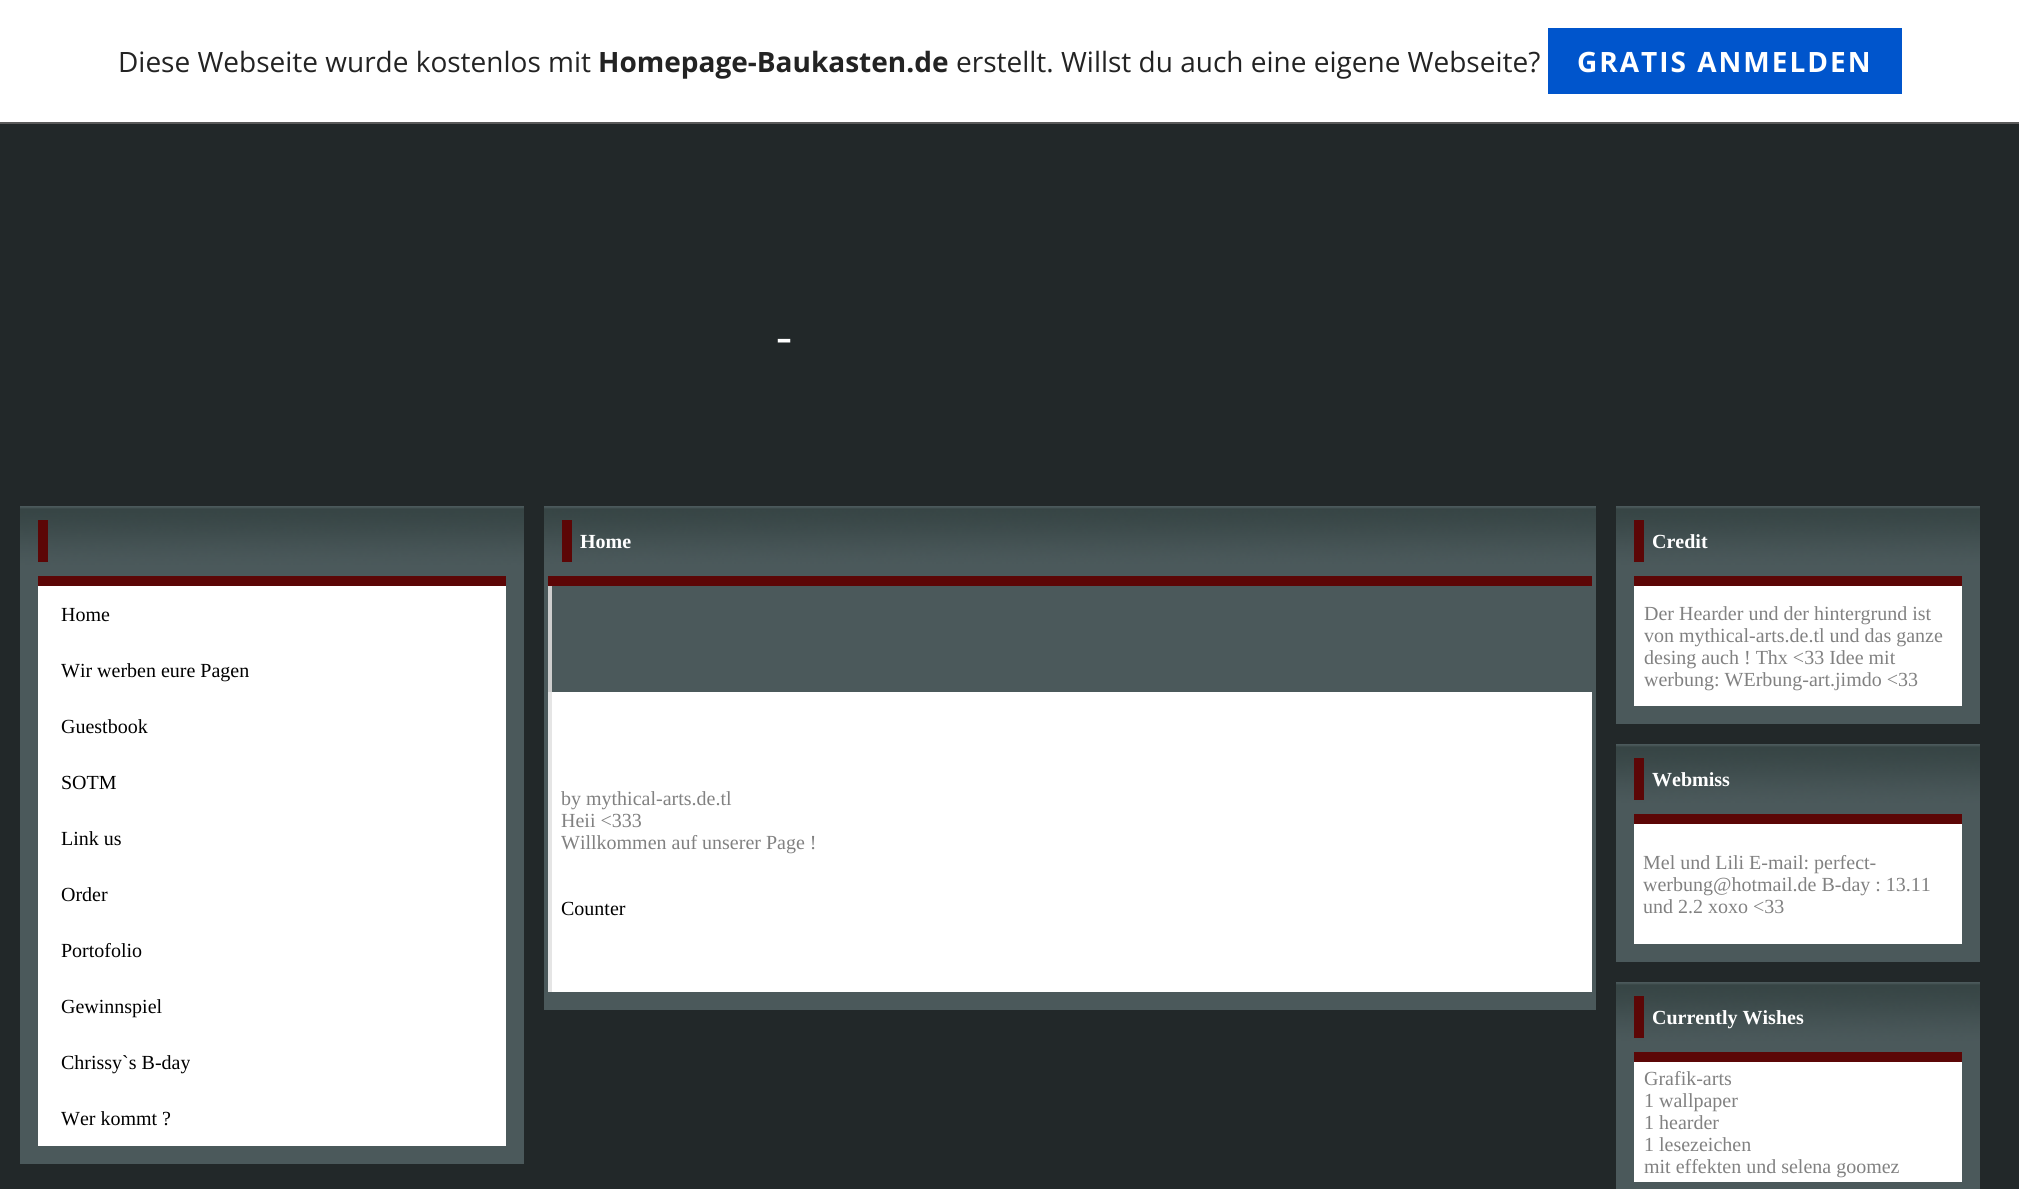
import math
import cairo



def draw_spaced(context, x, y, s, letter, word):
    context.move_to(x, y)
    for ch in s:
        context.show_text(ch)
        context.rel_move_to(letter + word * (ch == ' '), 0)


def draw_image(context, path, x, y, w, h):
    context.save()
    context.set_source_surface(cairo.ImageSurface.create_from_png(path), x, y)
    context.rectangle(x, y, w, h)
    context.fill()
    context.restore()


def draw(context):
    context.set_source_rgb(34 / 255, 40 / 255, 41 / 255)
    context.paint()
    context.set_source_rgb(1, 1, 1)
    context.rectangle(0, 0, 2019, 122)
    context.fill()
    context.set_source_rgb(90 / 255, 90 / 255, 90 / 255)
    context.rectangle(0, 122, 2019, 2)
    context.fill()
    context.set_source_rgb(0, 85 / 255, 204 / 255)
    context.rectangle(1548, 28, 354, 66)
    context.fill()
    draw_image(context, "images/1.png", 20, 506, 504, 70)
    context.set_source_rgb(92 / 255, 6 / 255, 6 / 255)
    context.rectangle(38, 520, 10, 42)
    context.fill()
    context.set_source_rgb(75 / 255, 89 / 255, 91 / 255)
    context.rectangle(20, 576, 504, 588)
    context.fill()
    context.set_source_rgb(92 / 255, 6 / 255, 6 / 255)
    context.rectangle(38, 576, 468, 10)
    context.fill()
    context.set_source_rgb(1, 1, 1)
    context.rectangle(38, 586, 468, 560)
    context.fill()
    draw_image(context, "images/2.png", 544, 506, 1052, 70)
    context.set_source_rgb(92 / 255, 6 / 255, 6 / 255)
    context.rectangle(562, 520, 10, 42)
    context.fill()
    context.set_source_rgb(75 / 255, 89 / 255, 91 / 255)
    context.rectangle(544, 576, 1052, 434)
    context.fill()
    context.set_source_rgb(92 / 255, 6 / 255, 6 / 255)
    context.rectangle(548, 576, 1044, 10)
    context.fill()
    context.set_source_rgb(206 / 255, 206 / 255, 206 / 255)
    context.rectangle(548, 586, 4, 106)
    context.fill()
    context.set_source_rgb(229 / 255, 229 / 255, 229 / 255)
    context.rectangle(548, 692, 4, 300)
    context.fill()
    context.set_source_rgb(1, 1, 1)
    context.rectangle(552, 692, 1040, 300)
    context.fill()
    draw_image(context, "images/3.png", 1616, 506, 364, 70)
    context.set_source_rgb(92 / 255, 6 / 255, 6 / 255)
    context.rectangle(1634, 520, 10, 42)
    context.fill()
    context.set_source_rgb(75 / 255, 89 / 255, 91 / 255)
    context.rectangle(1616, 576, 364, 148)
    context.fill()
    context.set_source_rgb(92 / 255, 6 / 255, 6 / 255)
    context.rectangle(1634, 576, 328, 10)
    context.fill()
    context.set_source_rgb(1, 1, 1)
    context.rectangle(1634, 586, 328, 120)
    context.fill()
    draw_image(context, "images/3.png", 1616, 744, 364, 70)
    context.set_source_rgb(92 / 255, 6 / 255, 6 / 255)
    context.rectangle(1634, 758, 10, 42)
    context.fill()
    context.set_source_rgb(75 / 255, 89 / 255, 91 / 255)
    context.rectangle(1616, 814, 364, 148)
    context.fill()
    context.set_source_rgb(92 / 255, 6 / 255, 6 / 255)
    context.rectangle(1634, 814, 328, 10)
    context.fill()
    context.set_source_rgb(1, 1, 1)
    context.rectangle(1634, 824, 328, 120)
    context.fill()
    draw_image(context, "images/3.png", 1616, 982, 364, 70)
    context.set_source_rgb(92 / 255, 6 / 255, 6 / 255)
    context.rectangle(1634, 996, 10, 42)
    context.fill()
    context.set_source_rgb(75 / 255, 89 / 255, 91 / 255)
    context.rectangle(1616, 1052, 364, 137)
    context.fill()
    context.set_source_rgb(92 / 255, 6 / 255, 6 / 255)
    context.rectangle(1634, 1052, 328, 10)
    context.fill()
    context.set_source_rgb(1, 1, 1)
    context.rectangle(1634, 1062, 328, 120)
    context.fill()
    context.select_font_face("Open Sans")
    context.set_font_size(28)
    context.set_source_rgb(35 / 255, 35 / 255, 35 / 255)
    context.move_to(118, 72)
    context.show_text("Diese Webseite wurde kostenlos mit")
    context.select_font_face("Open Sans", cairo.FontSlant.NORMAL, cairo.FontWeight.BOLD)
    context.move_to(598, 72)
    context.show_text("Homepage-Baukasten.de")
    context.select_font_face("Open Sans")
    context.move_to(956, 72)
    context.show_text("erstellt. Willst du auch eine eigene Webseite?")
    context.select_font_face("Open Sans", cairo.FontSlant.NORMAL, cairo.FontWeight.BOLD)
    context.set_source_rgb(1, 1, 1)
    draw_spaced(context, 1577, 72, "GRATIS ANMELDEN", 2, 0)
    context.select_font_face("Liberation Serif")
    context.set_font_size(48)
    context.move_to(776, 352)
    context.show_text("-")
    context.set_font_size(20)
    context.set_source_rgb(0, 0, 0)
    context.move_to(61, 621)
    context.show_text("Home")
    context.move_to(61, 677)
    context.show_text("Wir werben eure Pagen")
    context.move_to(61, 733)
    context.show_text("Guestbook")
    context.move_to(61, 789)
    context.show_text("SOTM")
    context.move_to(61, 845)
    context.show_text("Link us")
    context.move_to(61, 901)
    context.show_text("Order")
    context.move_to(61, 957)
    context.show_text("Portofolio")
    context.move_to(61, 1013)
    context.show_text("Gewinnspiel")
    context.move_to(61, 1069)
    context.show_text("Chrissy`s B-day")
    context.move_to(61, 1125)
    context.show_text("Wer kommt ?")
    context.select_font_face("Liberation Serif", cairo.FontSlant.NORMAL, cairo.FontWeight.BOLD)
    context.set_source_rgb(1, 1, 1)
    context.move_to(580, 548)
    context.show_text("Home")
    context.select_font_face("Liberation Serif")
    context.set_source_rgb(129 / 255, 129 / 255, 129 / 255)
    context.move_to(561, 805)
    context.show_text("by mythical-arts.de.tl")
    context.move_to(561, 827)
    context.show_text("Heii <333")
    context.move_to(561, 849)
    context.show_text("Willkommen auf unserer Page !")
    context.set_source_rgb(0, 0, 0)
    context.move_to(561, 915)
    context.show_text("Counter")
    context.select_font_face("Liberation Serif", cairo.FontSlant.NORMAL, cairo.FontWeight.BOLD)
    context.set_source_rgb(1, 1, 1)
    context.move_to(1652, 548)
    context.show_text("Credit")
    context.select_font_face("Liberation Serif")
    context.set_source_rgb(129 / 255, 129 / 255, 129 / 255)
    context.move_to(1644, 620)
    context.show_text("Der Hearder und der hintergrund ist")
    context.move_to(1644, 642)
    context.show_text("von mythical-arts.de.tl und das ganze")
    context.move_to(1644, 664)
    context.show_text("desing auch ! Thx <33 Idee mit")
    context.move_to(1644, 686)
    context.show_text("werbung: WErbung-art.jimdo <33")
    context.select_font_face("Liberation Serif", cairo.FontSlant.NORMAL, cairo.FontWeight.BOLD)
    context.set_source_rgb(1, 1, 1)
    context.move_to(1652, 786)
    context.show_text("Webmiss")
    context.select_font_face("Liberation Serif")
    context.set_source_rgb(129 / 255, 129 / 255, 129 / 255)
    context.move_to(1643, 869)
    context.show_text("Mel und Lili E-mail: perfect-")
    context.move_to(1643, 891)
    context.show_text("werbung@hotmail.de B-day : 13.11")
    context.move_to(1643, 913)
    context.show_text("und 2.2 xoxo <33")
    context.select_font_face("Liberation Serif", cairo.FontSlant.NORMAL, cairo.FontWeight.BOLD)
    context.set_source_rgb(1, 1, 1)
    context.move_to(1652, 1024)
    context.show_text("Currently Wishes")
    context.select_font_face("Liberation Serif")
    context.set_source_rgb(129 / 255, 129 / 255, 129 / 255)
    context.move_to(1644, 1085)
    context.show_text("Grafik-arts")
    context.move_to(1644, 1107)
    context.show_text("1 wallpaper")
    context.move_to(1644, 1129)
    context.show_text("1 hearder")
    context.move_to(1644, 1151)
    context.show_text("1 lesezeichen")
    context.move_to(1644, 1173)
    context.show_text("mit effekten und selena goomez")


surface = cairo.ImageSurface(cairo.Format.RGB24, 2019, 1189)
context = cairo.Context(surface)
options = cairo.FontOptions()
options.set_hint_metrics(cairo.HintMetrics.OFF)
options.set_hint_style(cairo.HintStyle.NONE)
context.set_font_options(options)
context.set_miter_limit(4)
draw(context)
surface.write_to_png("out.png")
